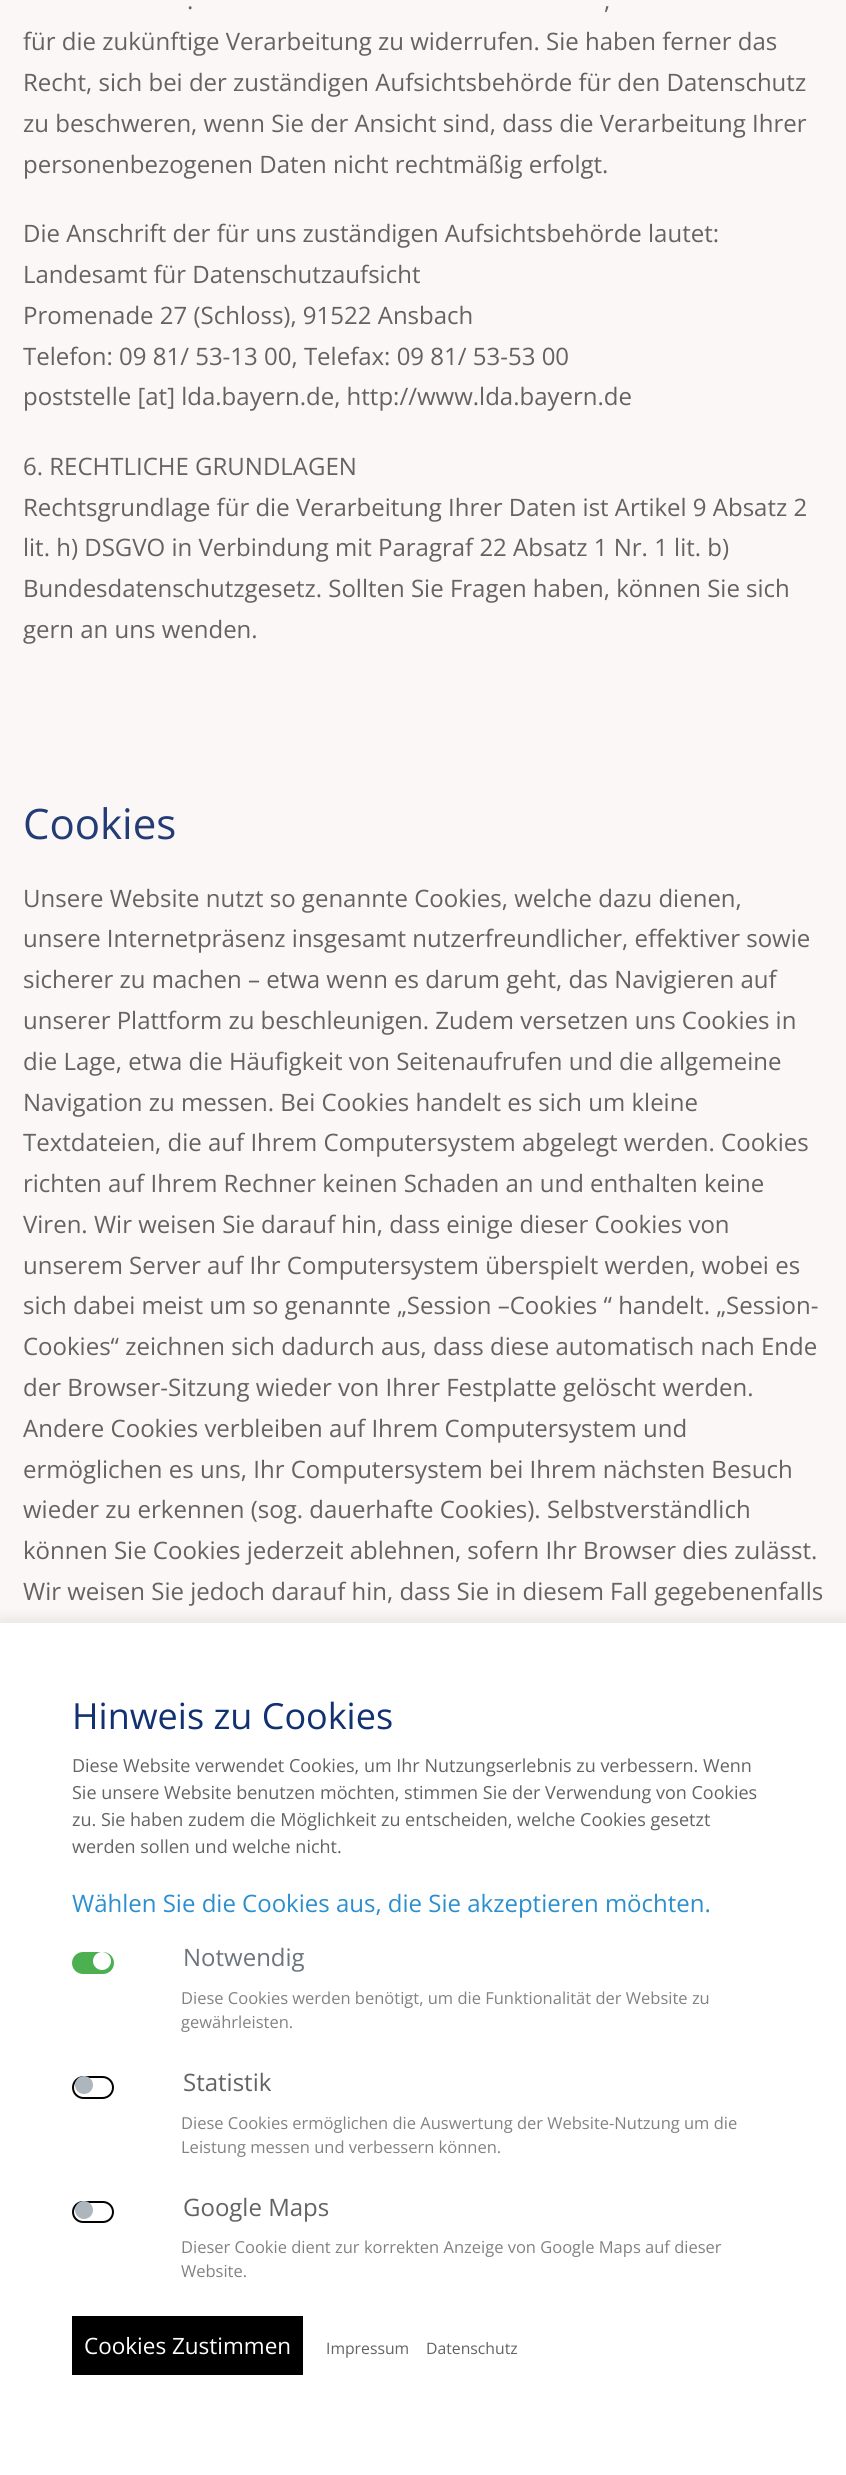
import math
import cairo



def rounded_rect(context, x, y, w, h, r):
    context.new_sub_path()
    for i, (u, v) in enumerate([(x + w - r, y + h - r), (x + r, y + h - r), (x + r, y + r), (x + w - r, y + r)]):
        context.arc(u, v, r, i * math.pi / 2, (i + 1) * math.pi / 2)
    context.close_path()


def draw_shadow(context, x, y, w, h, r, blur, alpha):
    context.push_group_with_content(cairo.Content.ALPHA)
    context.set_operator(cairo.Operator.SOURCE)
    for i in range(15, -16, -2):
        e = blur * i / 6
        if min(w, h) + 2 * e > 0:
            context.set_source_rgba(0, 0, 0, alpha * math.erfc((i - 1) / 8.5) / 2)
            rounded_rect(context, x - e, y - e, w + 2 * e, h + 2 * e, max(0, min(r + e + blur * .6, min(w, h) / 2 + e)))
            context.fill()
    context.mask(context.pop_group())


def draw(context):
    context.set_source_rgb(250 / 255, 247 / 255, 246 / 255)
    context.paint()
    context.set_source_rgb(0, 0, 0)
    draw_shadow(context, 0, 1619, 846, 852, 0, 7.5, 0.08)
    context.set_source_rgb(1, 1, 1)
    context.rectangle(0, 1623, 846, 852)
    context.fill()
    context.set_source_rgb(76 / 255, 175 / 255, 80 / 255)
    rounded_rect(context, 73, 1953, 40, 20, 10)
    context.fill_preserve()
    context.stroke()
    context.set_source_rgb(1, 1, 1)
    context.arc(102, 1961, 9, 0, 2 * math.pi)
    context.fill()
    rounded_rect(context, 73, 2077, 40, 21, 10.5)
    context.set_source_rgb(0, 0, 0)
    context.stroke()
    context.set_source_rgb(173 / 255, 181 / 255, 189 / 255)
    context.arc(84, 2085, 9, 0, 2 * math.pi)
    context.fill()
    rounded_rect(context, 73, 2202, 40, 20, 10)
    context.set_source_rgb(0, 0, 0)
    context.stroke()
    context.set_source_rgb(173 / 255, 181 / 255, 189 / 255)
    context.arc(84, 2210, 9, 0, 2 * math.pi)
    context.fill()
    context.set_source_rgb(0, 0, 0)
    context.rectangle(72, 2316, 231, 59)
    context.fill()
    context.select_font_face("Open Sans")
    context.set_font_size(24)
    context.set_source_rgb(100 / 255, 99 / 255, 99 / 255)
    context.move_to(187, 9)
    context.show_text(".")
    context.move_to(604, 9)
    context.show_text(",")
    context.move_to(23, 50)
    context.show_text("für die zukünftige Verarbeitung zu widerrufen. Sie haben ferner das")
    context.move_to(23, 91)
    context.show_text("Recht, sich bei der zuständigen Aufsichtsbehörde für den Datenschutz")
    context.move_to(23, 132)
    context.show_text("zu beschweren, wenn Sie der Ansicht sind, dass die Verarbeitung Ihrer")
    context.move_to(23, 173)
    context.show_text("personenbezogenen Daten nicht rechtmäßig erfolgt.")
    context.move_to(23, 242)
    context.show_text("Die Anschrift der für uns zuständigen Aufsichtsbehörde lautet:")
    context.move_to(23, 283)
    context.show_text("Landesamt für Datenschutzaufsicht")
    context.move_to(23, 324)
    context.show_text("Promenade 27 (Schloss), 91522 Ansbach")
    context.move_to(23, 365)
    context.show_text("Telefon: 09 81/ 53-13 00, Telefax: 09 81/ 53-53 00")
    context.move_to(23, 405)
    context.show_text("poststelle [at] lda.bayern.de, http://www.lda.bayern.de")
    context.move_to(23, 475)
    context.show_text("6. RECHTLICHE GRUNDLAGEN")
    context.move_to(23, 516)
    context.show_text("Rechtsgrundlage für die Verarbeitung Ihrer Daten ist Artikel 9 Absatz 2")
    context.move_to(23, 556)
    context.show_text("lit. h) DSGVO in Verbindung mit Paragraf 22 Absatz 1 Nr. 1 lit. b)")
    context.move_to(23, 597)
    context.show_text("Bundesdatenschutzgesetz. Sollten Sie Fragen haben, können Sie sich")
    context.move_to(23, 638)
    context.show_text("gern an uns wenden.")
    context.set_font_size(42)
    context.set_source_rgb(36 / 255, 60 / 255, 116 / 255)
    context.move_to(23, 839)
    context.show_text("Cookies")
    context.set_font_size(24)
    context.set_source_rgb(100 / 255, 99 / 255, 99 / 255)
    context.move_to(23, 907)
    context.show_text("Unsere Website nutzt so genannte Cookies, welche dazu dienen,")
    context.move_to(23, 947)
    context.show_text("unsere Internetpräsenz insgesamt nutzerfreundlicher, effektiver sowie")
    context.move_to(23, 988)
    context.show_text("sicherer zu machen – etwa wenn es darum geht, das Navigieren auf")
    context.move_to(23, 1029)
    context.show_text("unserer Plattform zu beschleunigen. Zudem versetzen uns Cookies in")
    context.move_to(23, 1070)
    context.show_text("die Lage, etwa die Häufigkeit von Seitenaufrufen und die allgemeine")
    context.move_to(23, 1111)
    context.show_text("Navigation zu messen. Bei Cookies handelt es sich um kleine")
    context.move_to(23, 1151)
    context.show_text("Textdateien, die auf Ihrem Computersystem abgelegt werden. Cookies")
    context.move_to(23, 1192)
    context.show_text("richten auf Ihrem Rechner keinen Schaden an und enthalten keine")
    context.move_to(23, 1233)
    context.show_text("Viren. Wir weisen Sie darauf hin, dass einige dieser Cookies von")
    context.move_to(23, 1274)
    context.show_text("unserem Server auf Ihr Computersystem überspielt werden, wobei es")
    context.move_to(23, 1314)
    context.show_text("sich dabei meist um so genannte „Session –Cookies “ handelt. „Session-")
    context.move_to(23, 1355)
    context.show_text("Cookies“ zeichnen sich dadurch aus, dass diese automatisch nach Ende")
    context.move_to(23, 1396)
    context.show_text("der Browser-Sitzung wieder von Ihrer Festplatte gelöscht werden.")
    context.move_to(23, 1437)
    context.show_text("Andere Cookies verbleiben auf Ihrem Computersystem und")
    context.move_to(23, 1478)
    context.show_text("ermöglichen es uns, Ihr Computersystem bei Ihrem nächsten Besuch")
    context.move_to(23, 1518)
    context.show_text("wieder zu erkennen (sog. dauerhafte Cookies). Selbstverständlich")
    context.move_to(23, 1559)
    context.show_text("können Sie Cookies jederzeit ablehnen, sofern Ihr Browser dies zulässt.")
    context.move_to(23, 1600)
    context.show_text("Wir weisen Sie jedoch darauf hin, dass Sie in diesem Fall gegebenenfalls")
    context.set_font_size(36)
    context.set_source_rgb(18 / 255, 49 / 255, 113 / 255)
    context.move_to(72, 1729)
    context.show_text("Hinweis zu Cookies")
    context.set_font_size(18)
    context.set_source_rgb(100 / 255, 99 / 255, 99 / 255)
    context.move_to(72, 1772)
    context.show_text("Diese Website verwendet Cookies, um Ihr Nutzungserlebnis zu verbessern. Wenn")
    context.move_to(72, 1799)
    context.show_text("Sie unsere Website benutzen möchten, stimmen Sie der Verwendung von Cookies")
    context.move_to(72, 1826)
    context.show_text("zu. Sie haben zudem die Möglichkeit zu entscheiden, welche Cookies gesetzt")
    context.move_to(72, 1853)
    context.show_text("werden sollen und welche nicht.")
    context.set_font_size(24)
    context.set_source_rgb(43 / 255, 143 / 255, 207 / 255)
    context.move_to(72, 1912)
    context.show_text("Wählen Sie die Cookies aus, die Sie akzeptieren möchten.")
    context.set_source_rgb(108 / 255, 117 / 255, 125 / 255)
    context.move_to(183, 1966)
    context.show_text("Notwendig")
    context.set_font_size(16.5)
    context.set_source_rgb(131 / 255, 130 / 255, 130 / 255)
    context.move_to(181, 2004)
    context.show_text("Diese Cookies werden benötigt, um die Funktionalität der Website zu")
    context.move_to(181, 2028)
    context.show_text("gewährleisten.")
    context.set_font_size(24)
    context.set_source_rgb(100 / 255, 99 / 255, 99 / 255)
    context.move_to(183, 2091)
    context.show_text("Statistik")
    context.set_font_size(16.5)
    context.set_source_rgb(131 / 255, 130 / 255, 130 / 255)
    context.move_to(181, 2129)
    context.show_text("Diese Cookies ermöglichen die Auswertung der Website-Nutzung um die")
    context.move_to(181, 2153)
    context.show_text("Leistung messen und verbessern können.")
    context.set_font_size(24)
    context.set_source_rgb(100 / 255, 99 / 255, 99 / 255)
    context.move_to(183, 2216)
    context.show_text("Google Maps")
    context.set_font_size(16.5)
    context.set_source_rgb(131 / 255, 130 / 255, 130 / 255)
    context.move_to(181, 2253)
    context.show_text("Dieser Cookie dient zur korrekten Anzeige von Google Maps auf dieser")
    context.move_to(181, 2277)
    context.show_text("Website.")
    context.set_font_size(22.5)
    context.set_source_rgb(1, 1, 1)
    context.move_to(84, 2354)
    context.show_text("Cookies Zustimmen")
    context.set_font_size(15.75)
    context.set_source_rgb(100 / 255, 99 / 255, 99 / 255)
    context.move_to(326, 2354)
    context.show_text("Impressum")
    context.move_to(426, 2354)
    context.show_text("Datenschutz")


surface = cairo.ImageSurface(cairo.Format.RGB24, 846, 2475)
context = cairo.Context(surface)
options = cairo.FontOptions()
options.set_hint_metrics(cairo.HintMetrics.OFF)
options.set_hint_style(cairo.HintStyle.NONE)
context.set_font_options(options)
context.set_miter_limit(4)
draw(context)
surface.write_to_png("out.png")
